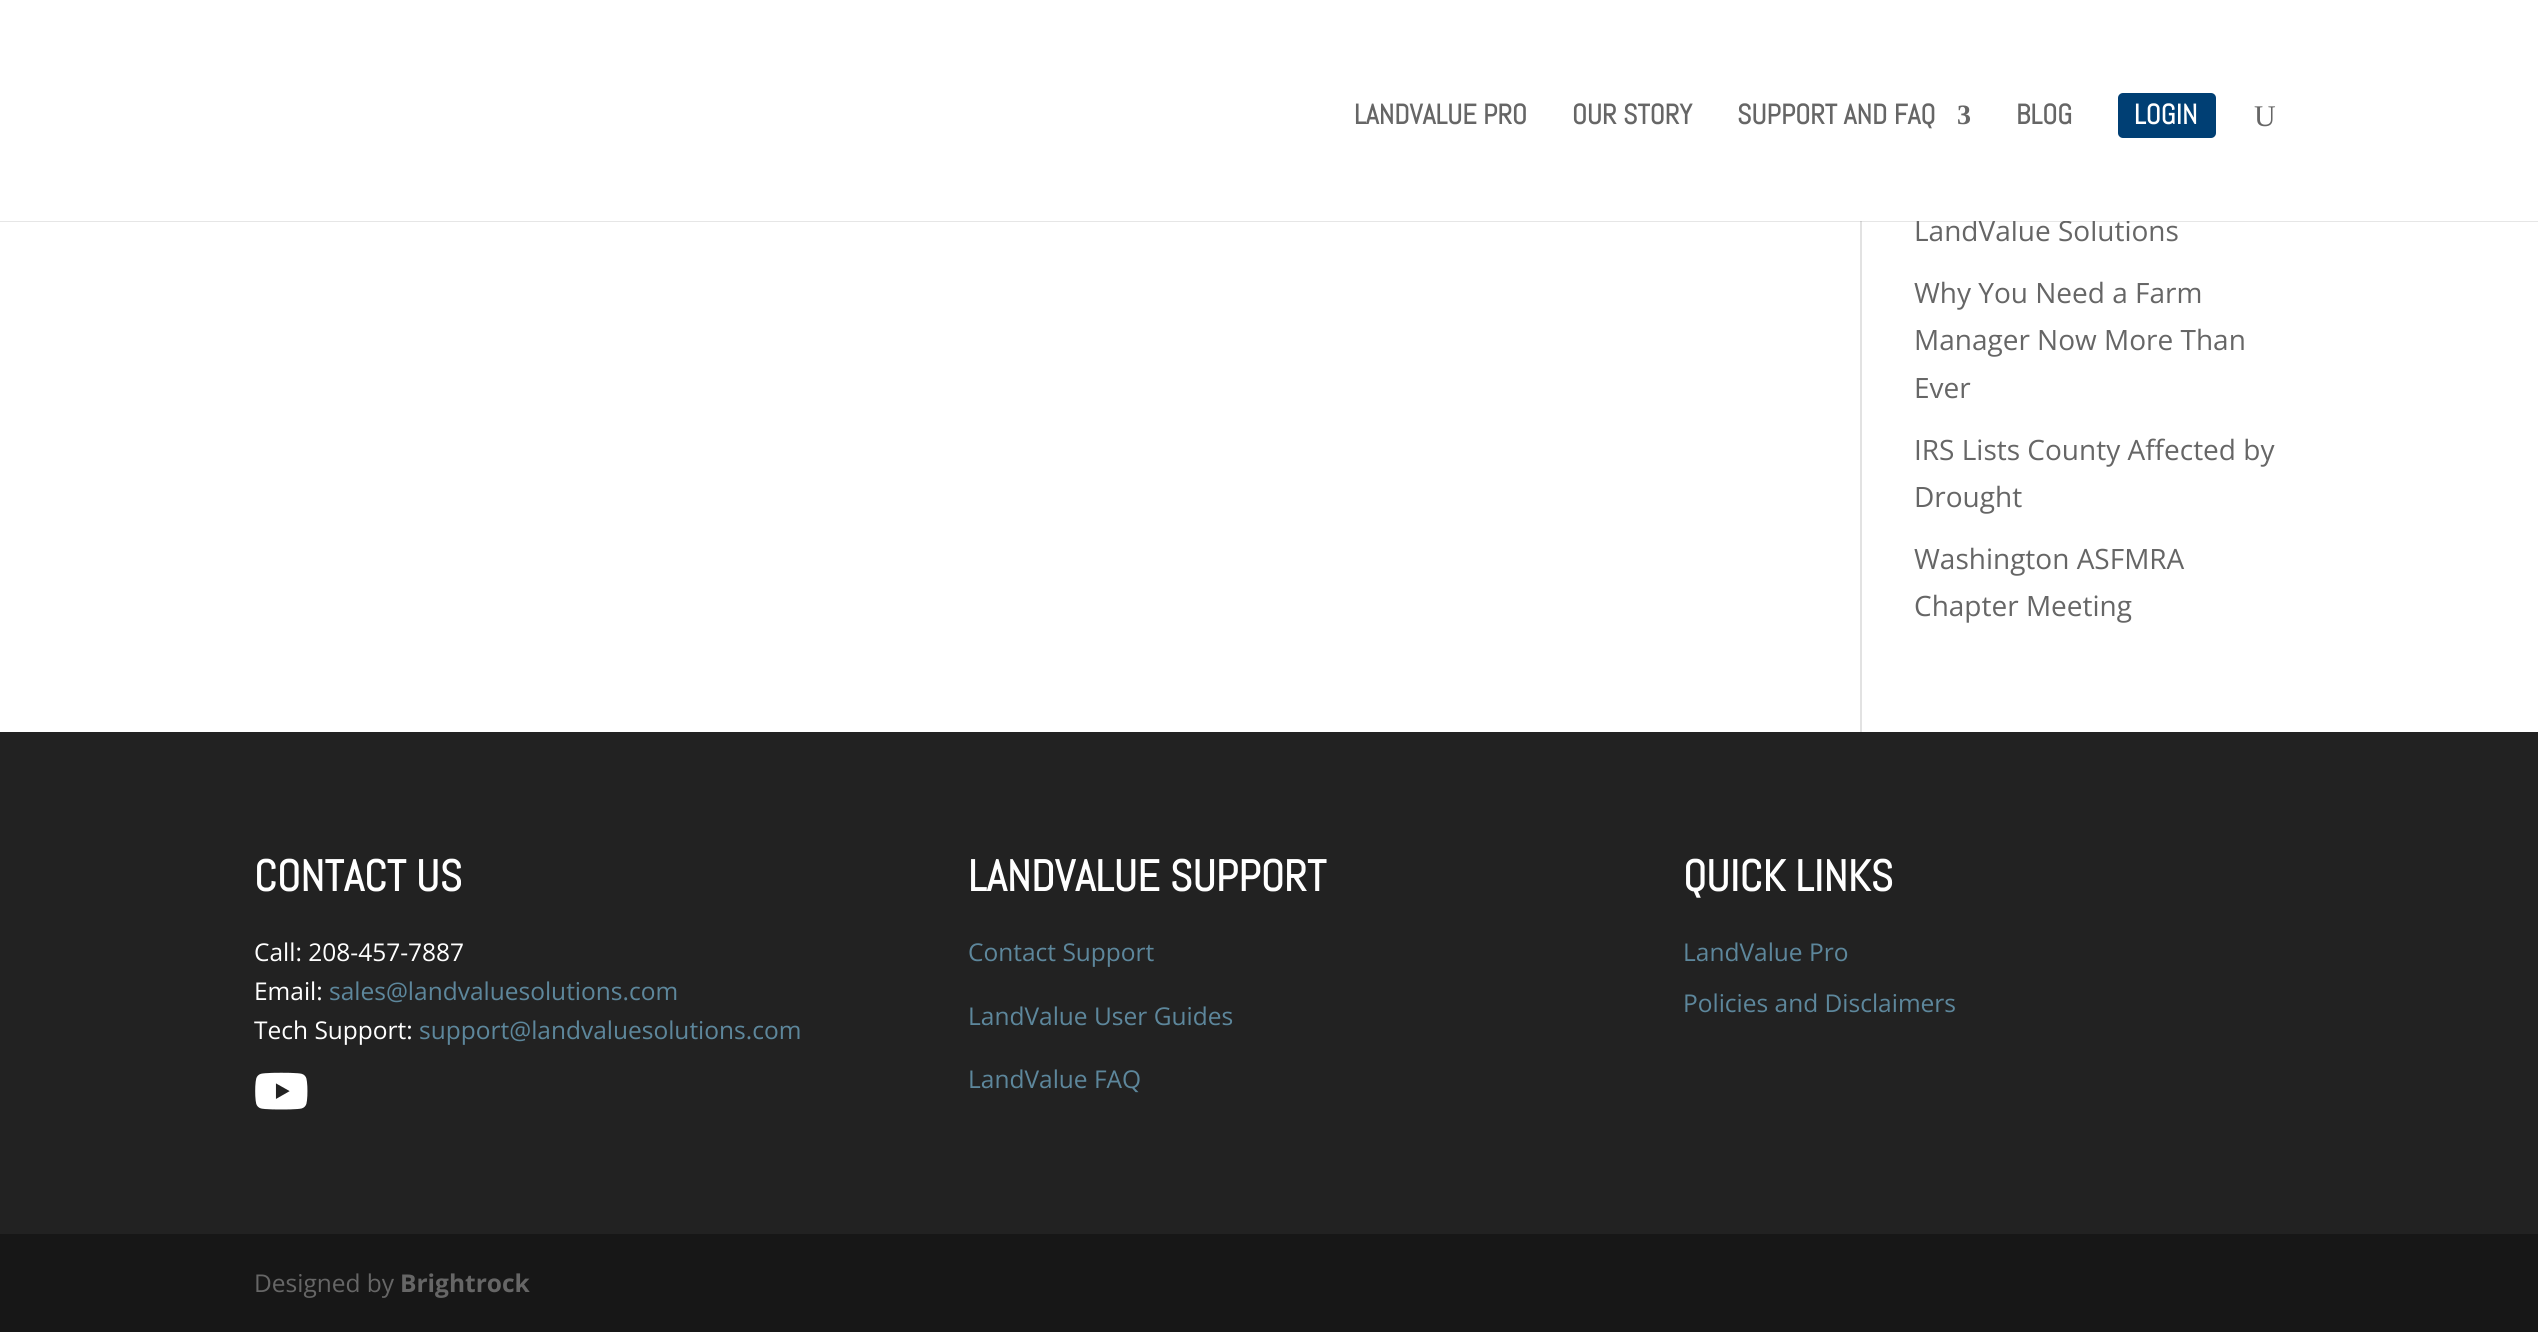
import math
import cairo



def rounded_rect(context, x, y, w, h, r):
    context.new_sub_path()
    for i, (u, v) in enumerate([(x + w - r, y + h - r), (x + r, y + h - r), (x + r, y + r), (x + w - r, y + r)]):
        context.arc(u, v, r, i * math.pi / 2, (i + 1) * math.pi / 2)
    context.close_path()


def draw_image(context, path, x, y, w, h):
    context.save()
    context.set_source_surface(cairo.ImageSurface.create_from_png(path), x, y)
    context.rectangle(x, y, w, h)
    context.fill()
    context.restore()


def draw(context):
    context.set_source_rgb(1, 1, 1)
    context.paint()
    context.set_source_rgb(226 / 255, 226 / 255, 226 / 255)
    context.rectangle(1860, 221, 2, 511)
    context.fill()
    context.set_source_rgba(0, 0, 0, 0.1)
    context.rectangle(0, 221, 2538, 1)
    context.fill()
    context.set_source_rgb(0, 63 / 255, 116 / 255)
    rounded_rect(context, 2118, 93, 98, 45, 5)
    context.fill()
    context.set_source_rgb(34 / 255, 34 / 255, 34 / 255)
    context.rectangle(0, 732, 2538, 502)
    context.fill()
    draw_image(context, "images/1.png", 255, 1072, 53, 38)
    context.set_source_rgb(23 / 255, 23 / 255, 23 / 255)
    context.rectangle(0, 1234, 2538, 98)
    context.fill()
    context.select_font_face("Abel", cairo.FontSlant.NORMAL, cairo.FontWeight.BOLD)
    context.set_font_size(28)
    context.set_source_rgb(102 / 255, 102 / 255, 102 / 255)
    context.move_to(1354, 124)
    context.show_text("LANDVALUE PRO")
    context.move_to(1572, 124)
    context.show_text("OUR STORY")
    context.move_to(1737, 124)
    context.show_text("SUPPORT AND FAQ")
    context.select_font_face("Liberation Serif", cairo.FontSlant.NORMAL, cairo.FontWeight.BOLD)
    context.move_to(1957, 124)
    context.show_text("3")
    context.select_font_face("Abel", cairo.FontSlant.NORMAL, cairo.FontWeight.BOLD)
    context.move_to(2016, 124)
    context.show_text("BLOG")
    context.set_source_rgb(1, 1, 1)
    context.move_to(2134, 124)
    context.show_text("LOGIN")
    context.select_font_face("Liberation Serif")
    context.set_font_size(30)
    context.set_source_rgb(102 / 255, 102 / 255, 102 / 255)
    context.move_to(2254, 126)
    context.show_text("U")
    context.select_font_face("Open Sans")
    context.set_font_size(28)
    context.move_to(1914, 241)
    context.show_text("LandValue Solutions")
    context.set_source_rgb(1, 1, 1)
    context.rectangle(1973, 219, 156, 2)
    context.fill()
    context.set_source_rgb(102 / 255, 102 / 255, 102 / 255)
    context.move_to(1914, 303)
    context.show_text("Why You Need a Farm")
    context.move_to(1914, 350)
    context.show_text("Manager Now More Than")
    context.move_to(1914, 398)
    context.show_text("Ever")
    context.move_to(1914, 460)
    context.show_text("IRS Lists County Affected by")
    context.move_to(1914, 507)
    context.show_text("Drought")
    context.move_to(1914, 569)
    context.show_text("Washington ASFMRA")
    context.move_to(1914, 616)
    context.show_text("Chapter Meeting")
    context.select_font_face("Abel", cairo.FontSlant.NORMAL, cairo.FontWeight.BOLD)
    context.set_font_size(43.75)
    context.set_source_rgb(1, 1, 1)
    context.move_to(254, 891)
    context.show_text("CONTACT US")
    context.select_font_face("Open Sans")
    context.set_font_size(24.5)
    context.move_to(254, 961)
    context.show_text("Call: 208-457-7887")
    context.move_to(254, 1000)
    context.show_text("Email:")
    context.set_source_rgb(93 / 255, 135 / 255, 156 / 255)
    context.move_to(329, 1000)
    context.show_text("sales@landvaluesolutions.com")
    context.set_source_rgb(1, 1, 1)
    context.move_to(254, 1039)
    context.show_text("Tech Support:")
    context.set_source_rgb(93 / 255, 135 / 255, 156 / 255)
    context.move_to(419, 1039)
    context.show_text("support@landvaluesolutions.com")
    context.select_font_face("Abel", cairo.FontSlant.NORMAL, cairo.FontWeight.BOLD)
    context.set_font_size(43.75)
    context.set_source_rgb(1, 1, 1)
    context.move_to(968, 891)
    context.show_text("LANDVALUE SUPPORT")
    context.select_font_face("Open Sans")
    context.set_font_size(24.5)
    context.set_source_rgb(93 / 255, 135 / 255, 156 / 255)
    context.move_to(968, 961)
    context.show_text("Contact Support")
    context.move_to(968, 1025)
    context.show_text("LandValue User Guides")
    context.move_to(968, 1088)
    context.show_text("LandValue FAQ")
    context.select_font_face("Abel", cairo.FontSlant.NORMAL, cairo.FontWeight.BOLD)
    context.set_font_size(43.75)
    context.set_source_rgb(1, 1, 1)
    context.move_to(1683, 891)
    context.show_text("QUICK LINKS")
    context.select_font_face("Open Sans")
    context.set_font_size(24.5)
    context.set_source_rgb(93 / 255, 135 / 255, 156 / 255)
    context.move_to(1683, 961)
    context.show_text("LandValue Pro")
    context.move_to(1683, 1012)
    context.show_text("Policies and Disclaimers")
    context.set_source_rgb(102 / 255, 102 / 255, 102 / 255)
    context.move_to(254, 1292)
    context.show_text("Designed by")
    context.select_font_face("Open Sans", cairo.FontSlant.NORMAL, cairo.FontWeight.BOLD)
    context.move_to(400, 1292)
    context.show_text("Brightrock")


surface = cairo.ImageSurface(cairo.Format.RGB24, 2538, 1332)
context = cairo.Context(surface)
options = cairo.FontOptions()
options.set_hint_metrics(cairo.HintMetrics.OFF)
options.set_hint_style(cairo.HintStyle.NONE)
context.set_font_options(options)
context.set_miter_limit(4)
draw(context)
surface.write_to_png("out.png")
